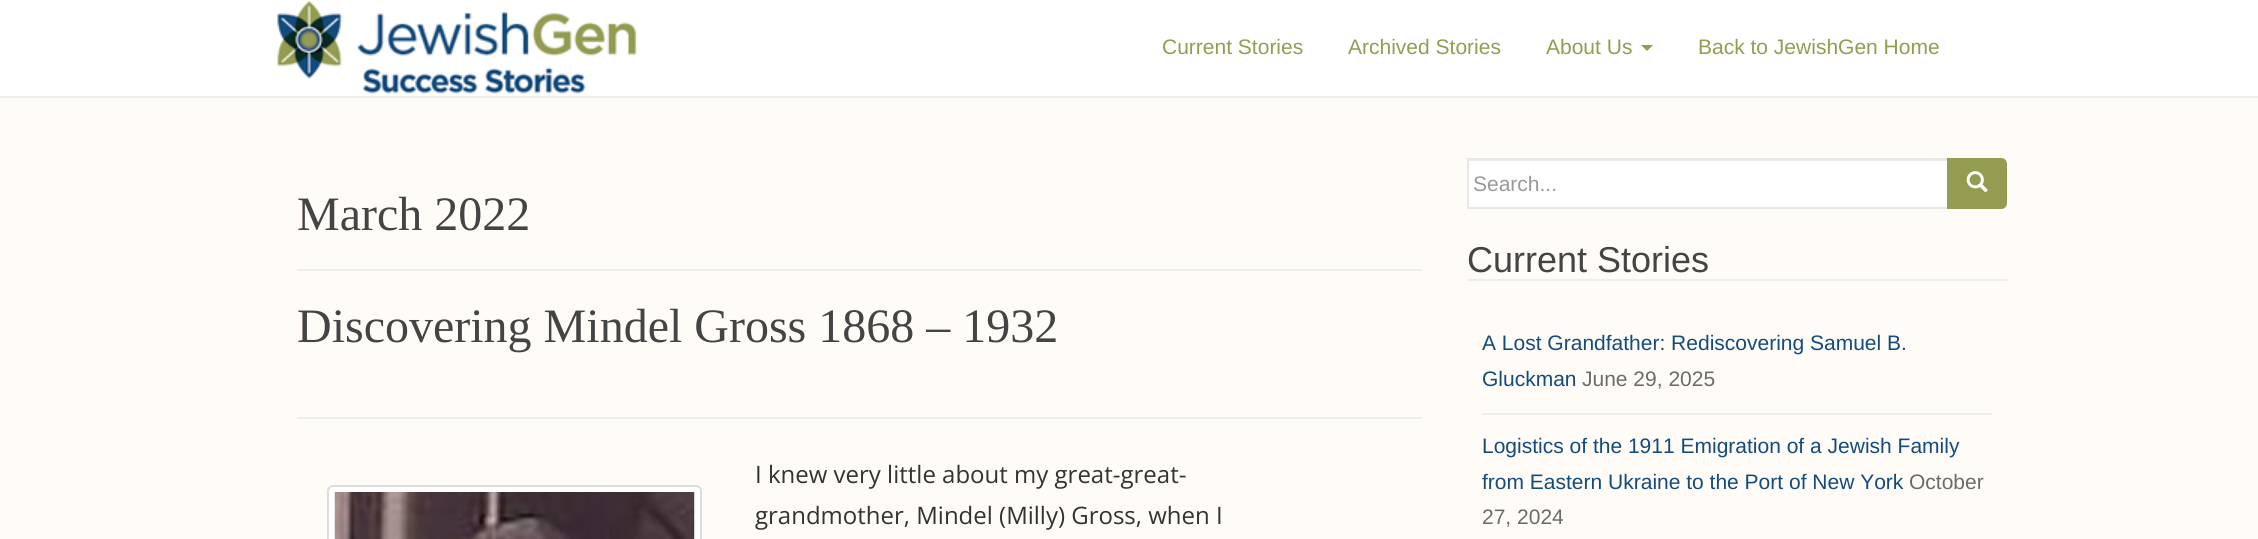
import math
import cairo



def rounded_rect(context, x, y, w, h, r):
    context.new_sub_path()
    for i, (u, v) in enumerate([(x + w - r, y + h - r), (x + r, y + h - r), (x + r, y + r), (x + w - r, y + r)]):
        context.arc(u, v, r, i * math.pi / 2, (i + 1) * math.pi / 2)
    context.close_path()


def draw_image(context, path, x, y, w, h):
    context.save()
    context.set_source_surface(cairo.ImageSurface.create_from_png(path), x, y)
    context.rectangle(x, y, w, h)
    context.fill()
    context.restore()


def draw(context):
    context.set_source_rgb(1, 252 / 255, 247 / 255)
    context.paint()
    context.set_source_rgb(1, 1, 1)
    context.rectangle(0, 0, 2258, 96)
    context.fill()
    context.set_source_rgb(238 / 255, 238 / 255, 238 / 255)
    context.rectangle(0, 96, 2258, 2)
    context.fill()
    draw_image(context, "images/1.png", 277, 1, 360, 93)
    context.set_source_rgb(148 / 255, 156 / 255, 81 / 255)
    context.new_path()
    context.move_to(1641, 45)
    context.line_to(1653, 45)
    context.line_to(1647, 51)
    context.close_path()
    context.fill()
    context.set_source_rgb(238 / 255, 238 / 255, 238 / 255)
    context.rectangle(297, 269, 1125, 2)
    context.fill()
    context.rectangle(297, 417, 1125, 2)
    context.fill()
    context.set_source_rgb(1, 1, 1)
    rounded_rect(context, 328, 486, 373, 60, 5)
    context.fill_preserve()
    context.set_source_rgb(221 / 255, 221 / 255, 221 / 255)
    context.stroke()
    draw_image(context, "images/2.png", 334, 492, 361, 47)
    context.set_source_rgb(1, 1, 1)
    context.rectangle(1469, 161, 478, 46)
    context.fill()
    context.set_source_rgb(236 / 255, 236 / 255, 236 / 255)
    context.rectangle(1469, 160, 478, 1)
    context.fill()
    context.rectangle(1468, 159, 480, 49)
    context.set_source_rgb(232 / 255, 232 / 255, 232 / 255)
    context.stroke()
    context.set_source_rgb(148 / 255, 156 / 255, 81 / 255)
    context.new_path()
    context.move_to(1948, 159)
    context.line_to(2001, 159)
    context.curve_to(2004, 159, 2006, 161, 2006, 164)
    context.line_to(2006, 203)
    context.curve_to(2006, 206, 2004, 208, 2001, 208)
    context.line_to(1948, 208)
    context.close_path()
    context.fill_preserve()
    context.stroke()
    draw_image(context, "images/3.png", 1966, 171, 22, 22)
    context.set_source_rgb(238 / 255, 238 / 255, 238 / 255)
    context.rectangle(1467, 279, 540, 2)
    context.fill()
    context.rectangle(1482, 413, 510, 2)
    context.fill()
    context.select_font_face("Liberation Sans")
    context.set_font_size(21)
    context.set_source_rgb(148 / 255, 156 / 255, 81 / 255)
    context.move_to(1162, 54)
    context.show_text("Current Stories")
    context.move_to(1348, 54)
    context.show_text("Archived Stories")
    context.move_to(1546, 54)
    context.show_text("About Us")
    context.move_to(1698, 54)
    context.show_text("Back to JewishGen Home")
    context.select_font_face("Liberation Serif")
    context.set_font_size(48)
    context.set_source_rgb(68 / 255, 68 / 255, 68 / 255)
    context.move_to(297, 230)
    context.show_text("March 2022")
    context.move_to(297, 342)
    context.show_text("Discovering Mindel Gross 1868 – 1932")
    context.select_font_face("Open Sans")
    context.set_font_size(24)
    context.set_source_rgb(51 / 255, 51 / 255, 51 / 255)
    context.move_to(755, 483)
    context.show_text("I knew very little about my great-great-")
    context.move_to(755, 524)
    context.show_text("grandmother, Mindel (Milly) Gross, when I")
    context.select_font_face("Liberation Sans")
    context.set_font_size(21)
    context.set_source_rgb(153 / 255, 153 / 255, 153 / 255)
    context.move_to(1473, 191)
    context.show_text("Search...")
    context.set_font_size(36)
    context.set_source_rgb(68 / 255, 68 / 255, 68 / 255)
    context.move_to(1467, 272)
    context.show_text("Current Stories")
    context.set_font_size(21)
    context.set_source_rgb(19 / 255, 75 / 255, 125 / 255)
    context.move_to(1482, 350)
    context.show_text("A Lost Grandfather: Rediscovering Samuel B.")
    context.move_to(1482, 386)
    context.show_text("Gluckman")
    context.set_source_rgb(107 / 255, 107 / 255, 107 / 255)
    context.move_to(1582, 386)
    context.show_text("June 29, 2025")
    context.set_source_rgb(19 / 255, 75 / 255, 125 / 255)
    context.move_to(1482, 453)
    context.show_text("Logistics of the 1911 Emigration of a Jewish Family")
    context.move_to(1482, 489)
    context.show_text("from Eastern Ukraine to the Port of New York")
    context.set_source_rgb(107 / 255, 107 / 255, 107 / 255)
    context.move_to(1909, 489)
    context.show_text("October")
    context.move_to(1482, 524)
    context.show_text("27, 2024")


surface = cairo.ImageSurface(cairo.Format.RGB24, 2258, 539)
context = cairo.Context(surface)
options = cairo.FontOptions()
options.set_hint_metrics(cairo.HintMetrics.OFF)
options.set_hint_style(cairo.HintStyle.NONE)
context.set_font_options(options)
context.set_miter_limit(4)
draw(context)
surface.write_to_png("out.png")
